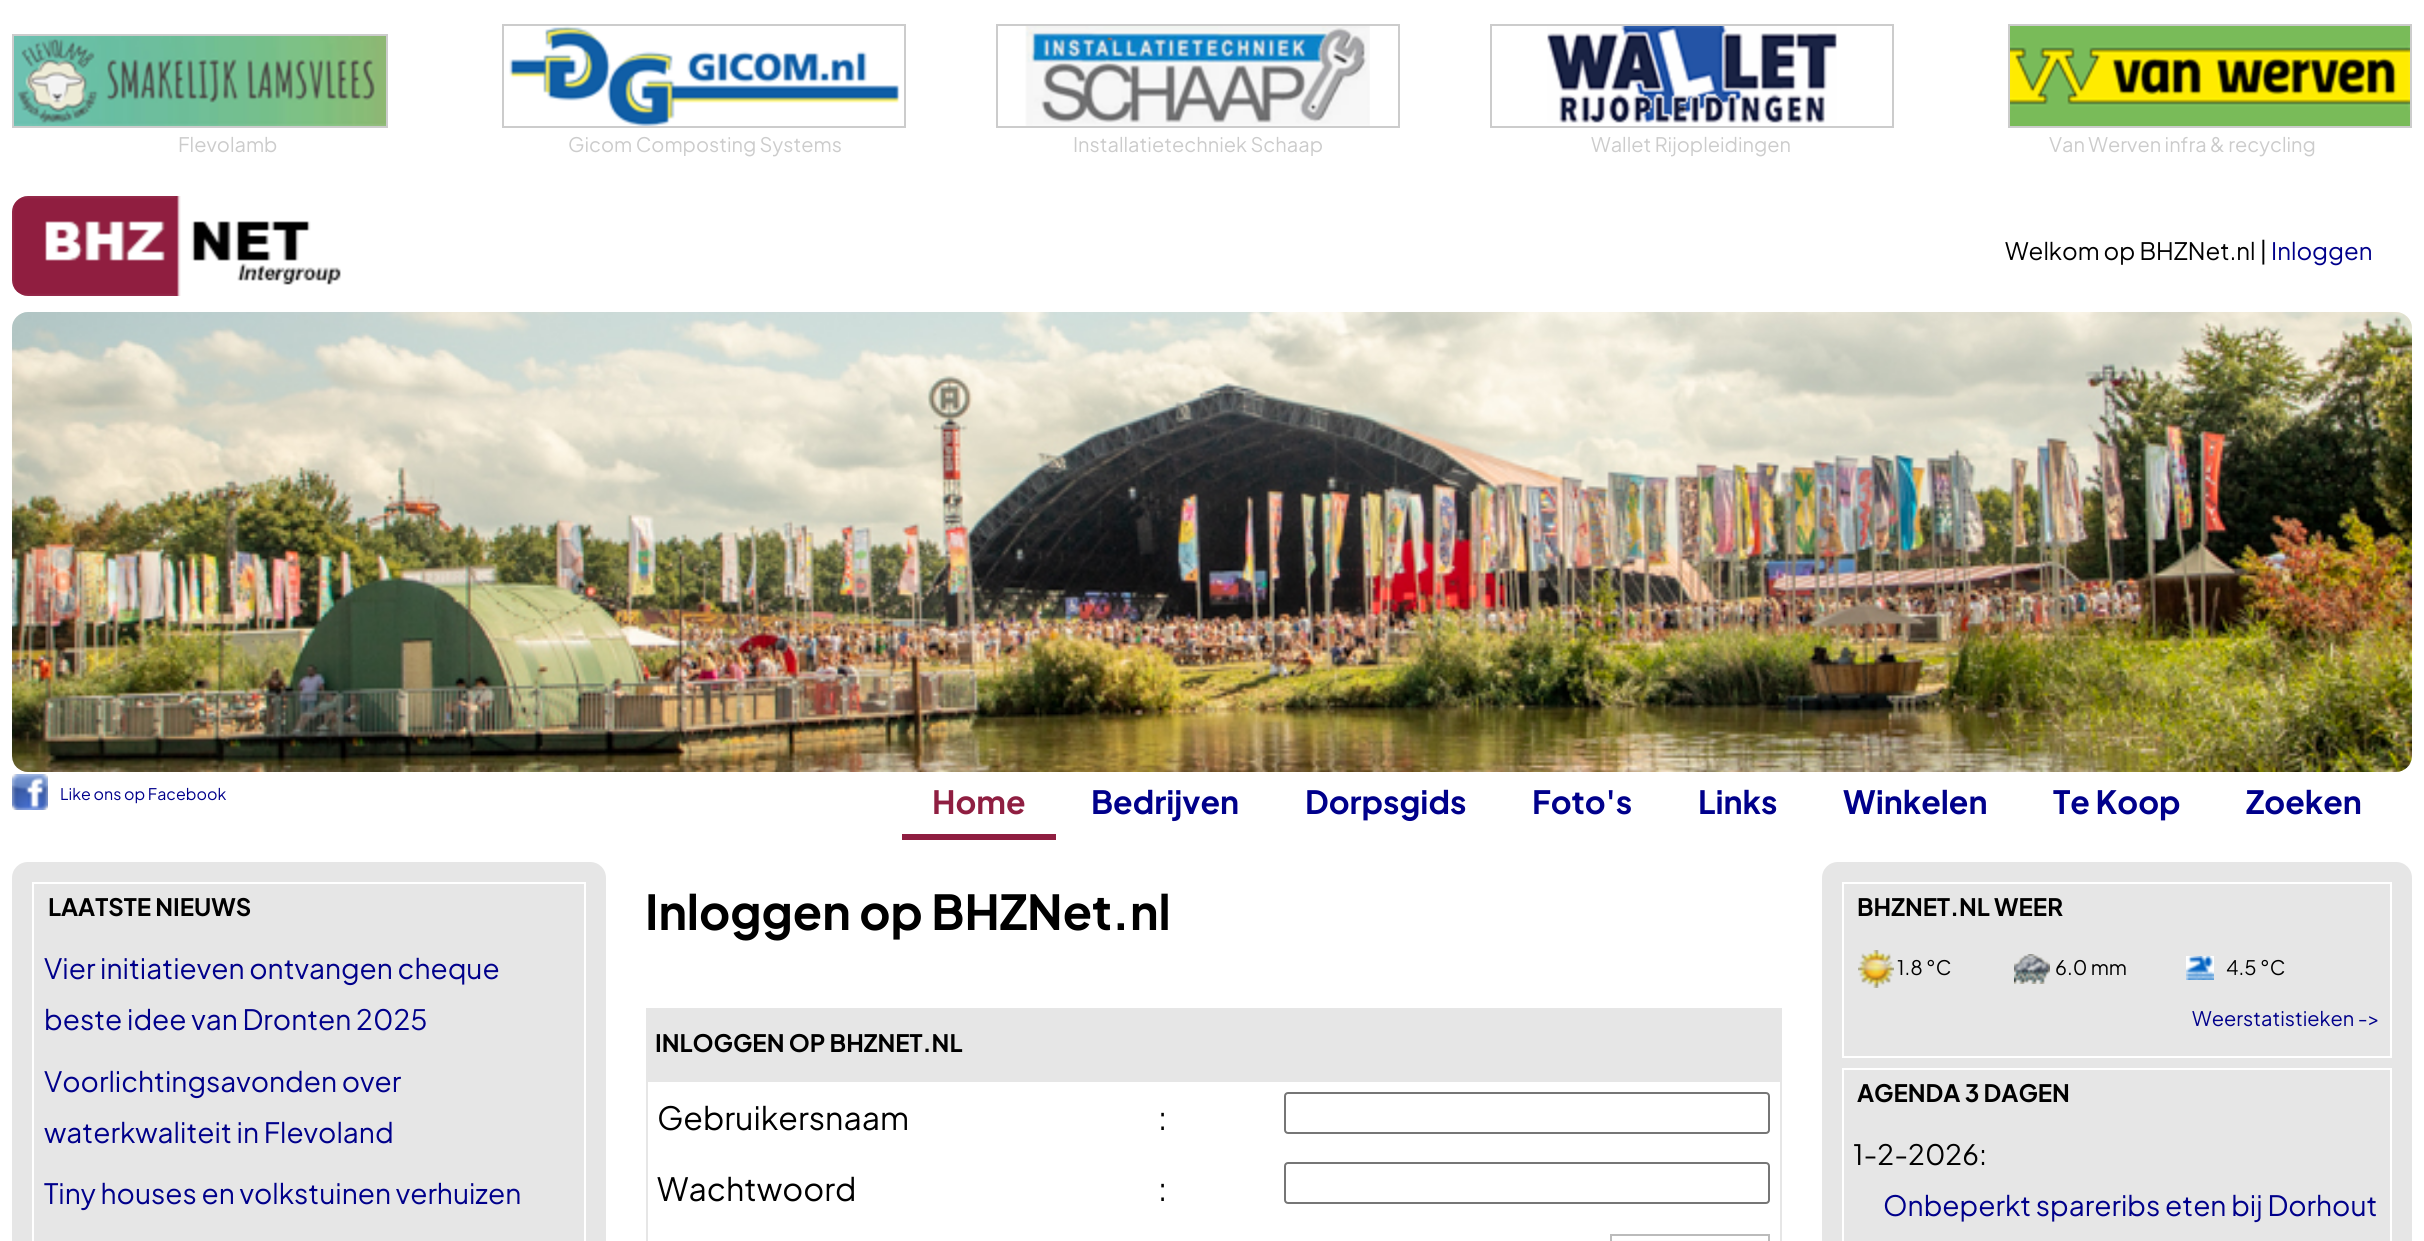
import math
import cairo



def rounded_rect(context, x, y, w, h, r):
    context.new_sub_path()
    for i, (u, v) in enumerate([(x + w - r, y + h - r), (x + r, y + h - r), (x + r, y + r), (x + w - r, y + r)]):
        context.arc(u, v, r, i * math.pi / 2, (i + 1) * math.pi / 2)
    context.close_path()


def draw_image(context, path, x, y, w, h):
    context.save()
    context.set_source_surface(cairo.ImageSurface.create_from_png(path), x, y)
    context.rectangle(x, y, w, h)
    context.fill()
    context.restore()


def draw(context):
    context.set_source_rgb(1, 1, 1)
    context.paint()
    context.rectangle(13, 35, 374, 92)
    context.set_source_rgb(204 / 255, 204 / 255, 204 / 255)
    context.stroke()
    draw_image(context, "images/1.png", 14, 36, 372, 90)
    context.rectangle(503, 25, 402, 102)
    context.stroke()
    draw_image(context, "images/2.png", 509, 26, 391, 100)
    context.rectangle(997, 25, 402, 102)
    context.stroke()
    draw_image(context, "images/3.png", 1025, 26, 345, 100)
    context.rectangle(1491, 25, 402, 102)
    context.stroke()
    draw_image(context, "images/4.png", 1547, 26, 290, 97)
    context.rectangle(2009, 25, 402, 102)
    context.stroke()
    draw_image(context, "images/5.png", 2010, 26, 400, 100)
    draw_image(context, "images/6.png", 12, 312, 2400, 460)
    draw_image(context, "images/7.png", 12, 196, 329, 100)
    draw_image(context, "images/8.png", 12, 774, 36, 36)
    context.set_source_rgb(143 / 255, 30 / 255, 65 / 255)
    context.rectangle(902, 834, 154, 6)
    context.fill()
    context.set_source_rgb(230 / 255, 230 / 255, 230 / 255)
    context.new_path()
    context.move_to(28, 862)
    context.line_to(590, 862)
    context.curve_to(599, 862, 606, 869, 606, 878)
    context.line_to(606, 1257)
    context.line_to(12, 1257)
    context.line_to(12, 878)
    context.curve_to(12, 869, 19, 862, 28, 862)
    context.close_path()
    context.fill()
    context.rectangle(33, 883, 552, 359)
    context.set_source_rgb(1, 1, 1)
    context.stroke()
    context.set_source_rgb(230 / 255, 230 / 255, 230 / 255)
    context.rectangle(646, 1008, 1136, 74)
    context.fill()
    context.rectangle(1780, 1080, 2, 161)
    context.fill()
    context.rectangle(646, 1080, 2, 161)
    context.fill()
    rounded_rect(context, 1285, 1093, 484, 40, 3)
    context.set_source_rgb(118 / 255, 118 / 255, 118 / 255)
    context.stroke()
    rounded_rect(context, 1285, 1163, 484, 40, 3)
    context.stroke()
    gradient = cairo.LinearGradient(1690, 1236, 1690, 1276)
    gradient.add_color_stop_rgba(0, 1, 1, 1, 1)
    gradient.add_color_stop_rgba(1, 230 / 255, 230 / 255, 230 / 255, 1)
    context.set_source(gradient)
    context.rectangle(1610, 1240, 160, 1)
    context.fill()
    context.rectangle(1611, 1235, 158, 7)
    context.set_source_rgb(187 / 255, 187 / 255, 187 / 255)
    context.stroke()
    context.set_source_rgb(230 / 255, 230 / 255, 230 / 255)
    context.new_path()
    context.move_to(1838, 862)
    context.line_to(2396, 862)
    context.curve_to(2405, 862, 2412, 869, 2412, 878)
    context.line_to(2412, 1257)
    context.line_to(1822, 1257)
    context.line_to(1822, 878)
    context.curve_to(1822, 869, 1829, 862, 1838, 862)
    context.close_path()
    context.fill()
    context.rectangle(1843, 883, 548, 174)
    context.set_source_rgb(1, 1, 1)
    context.stroke()
    draw_image(context, "images/9.png", 1858, 950, 36, 38)
    draw_image(context, "images/10.png", 2014, 954, 36, 30)
    draw_image(context, "images/11.png", 2186, 956, 28, 24)
    context.rectangle(1843, 1069, 548, 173)
    context.stroke()
    context.select_font_face("Plus Jakarta Sans")
    context.set_font_size(20)
    context.set_source_rgb(204 / 255, 204 / 255, 204 / 255)
    context.move_to(178, 152)
    context.show_text("Flevolamb")
    context.move_to(568, 152)
    context.show_text("Gicom Composting Systems")
    context.move_to(1073, 152)
    context.show_text("Installatietechniek Schaap")
    context.move_to(1591, 152)
    context.show_text("Wallet Rijopleidingen")
    context.move_to(2049, 152)
    context.show_text("Van Werven infra & recycling")
    context.set_font_size(24)
    context.set_source_rgb(0, 0, 0)
    context.move_to(2005, 260)
    context.show_text("Welkom op BHZNet.nl |")
    context.set_source_rgb(0, 0, 139 / 255)
    context.move_to(2271, 260)
    context.show_text("Inloggen")
    context.set_font_size(16)
    context.move_to(60, 800)
    context.show_text("Like ons op Facebook")
    context.select_font_face("Plus Jakarta Sans", cairo.FontSlant.NORMAL, cairo.FontWeight.BOLD)
    context.set_font_size(32)
    context.set_source_rgb(143 / 255, 30 / 255, 65 / 255)
    context.move_to(932, 814)
    context.show_text("Home")
    context.set_source_rgb(0, 0, 139 / 255)
    context.move_to(1091, 814)
    context.show_text("Bedrijven")
    context.move_to(1305, 814)
    context.show_text("Dorpsgids")
    context.move_to(1532, 814)
    context.show_text("Foto's")
    context.move_to(1698, 814)
    context.show_text("Links")
    context.move_to(1843, 814)
    context.show_text("Winkelen")
    context.move_to(2053, 814)
    context.show_text("Te Koop")
    context.move_to(2246, 814)
    context.show_text("Zoeken")
    context.set_font_size(24)
    context.set_source_rgb(0, 0, 0)
    context.move_to(48, 916)
    context.show_text("LAATSTE NIEUWS")
    context.select_font_face("Plus Jakarta Sans")
    context.set_font_size(28)
    context.set_source_rgb(0, 0, 139 / 255)
    context.move_to(44, 979)
    context.show_text("Vier initiatieven ontvangen cheque")
    context.move_to(44, 1030)
    context.show_text("beste idee van Dronten 2025")
    context.move_to(44, 1092)
    context.show_text("Voorlichtingsavonden over")
    context.move_to(44, 1143)
    context.show_text("waterkwaliteit in Flevoland")
    context.move_to(44, 1204)
    context.show_text("Tiny houses en volkstuinen verhuizen")
    context.select_font_face("Plus Jakarta Sans", cairo.FontSlant.NORMAL, cairo.FontWeight.BOLD)
    context.set_font_size(48)
    context.set_source_rgb(0, 0, 0)
    context.move_to(645, 930)
    context.show_text("Inloggen op BHZNet.nl")
    context.set_font_size(24)
    context.move_to(655, 1052)
    context.show_text("INLOGGEN OP BHZNET.NL")
    context.select_font_face("Plus Jakarta Sans")
    context.set_font_size(32)
    context.move_to(657, 1130)
    context.show_text("Gebruikersnaam")
    context.move_to(1158, 1130)
    context.show_text(":")
    context.move_to(657, 1201)
    context.show_text("Wachtwoord")
    context.move_to(1158, 1201)
    context.show_text(":")
    context.select_font_face("Plus Jakarta Sans", cairo.FontSlant.NORMAL, cairo.FontWeight.BOLD)
    context.set_font_size(24)
    context.move_to(1857, 916)
    context.show_text("BHZNET.NL WEER")
    context.select_font_face("Plus Jakarta Sans")
    context.set_font_size(20)
    context.move_to(1897, 975)
    context.show_text("1.8 °C")
    context.move_to(2055, 975)
    context.show_text("6.0 mm")
    context.move_to(2226, 975)
    context.show_text("4.5 °C")
    context.set_source_rgb(0, 0, 139 / 255)
    context.move_to(2192, 1026)
    context.show_text("Weerstatistieken ->")
    context.select_font_face("Plus Jakarta Sans", cairo.FontSlant.NORMAL, cairo.FontWeight.BOLD)
    context.set_font_size(24)
    context.set_source_rgb(0, 0, 0)
    context.move_to(1857, 1102)
    context.show_text("AGENDA 3 DAGEN")
    context.select_font_face("Plus Jakarta Sans")
    context.set_font_size(28)
    context.move_to(1853, 1165)
    context.show_text("1-2-2026:")
    context.set_source_rgb(0, 0, 139 / 255)
    context.move_to(1883, 1216)
    context.show_text("Onbeperkt spareribs eten bij Dorhout")


surface = cairo.ImageSurface(cairo.Format.RGB24, 2424, 1241)
context = cairo.Context(surface)
options = cairo.FontOptions()
options.set_hint_metrics(cairo.HintMetrics.OFF)
options.set_hint_style(cairo.HintStyle.NONE)
context.set_font_options(options)
context.set_miter_limit(4)
draw(context)
surface.write_to_png("out.png")
